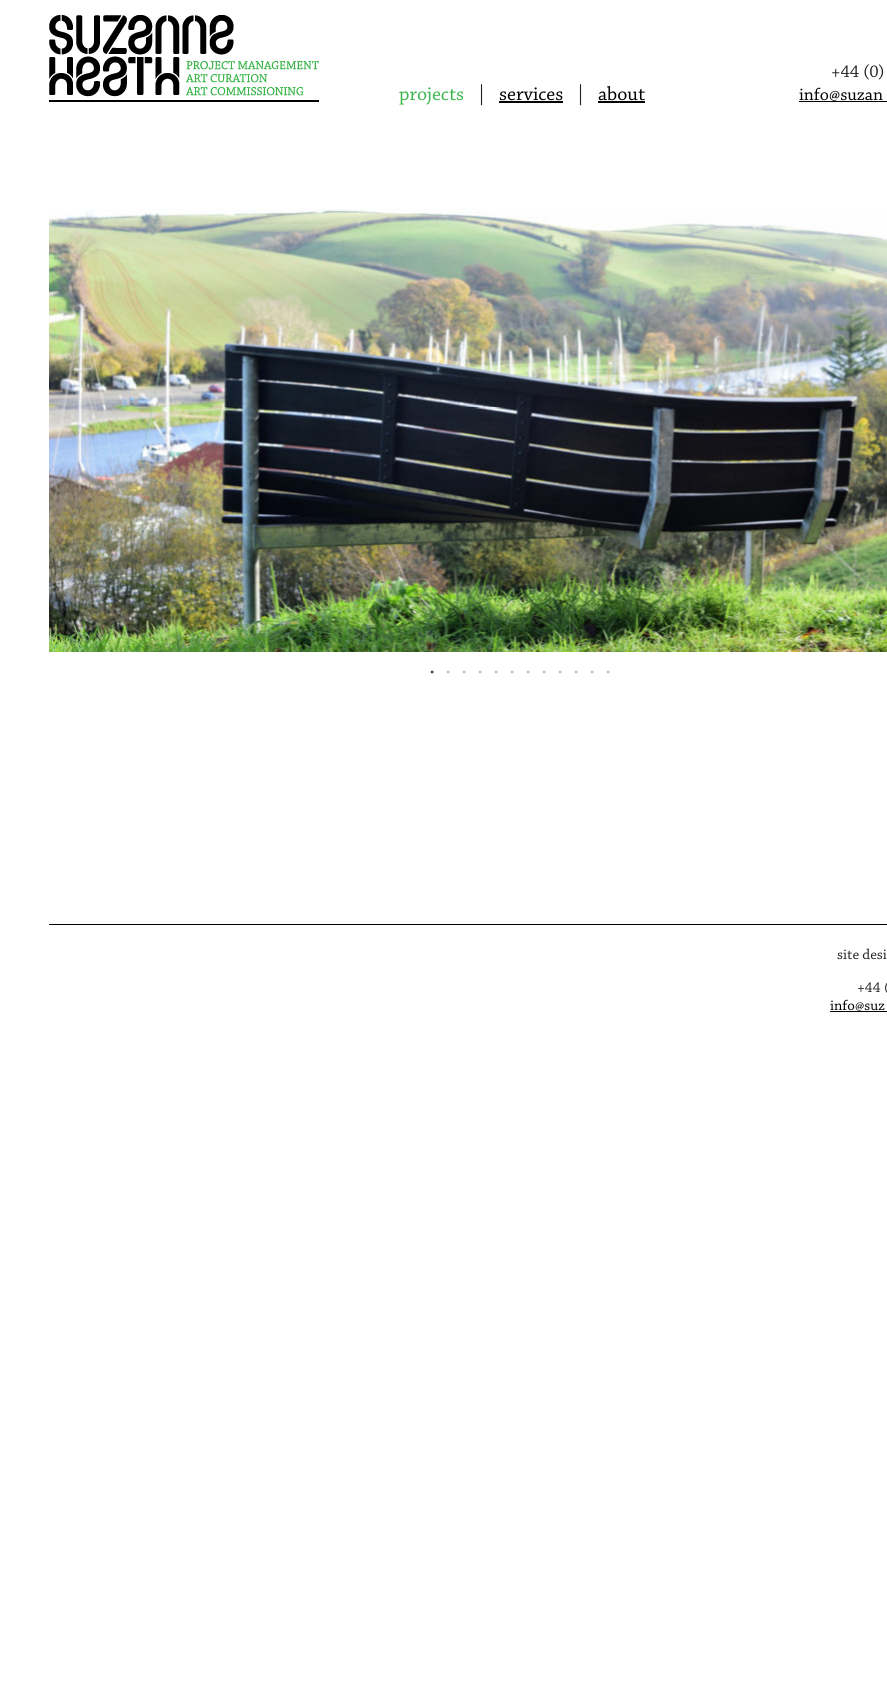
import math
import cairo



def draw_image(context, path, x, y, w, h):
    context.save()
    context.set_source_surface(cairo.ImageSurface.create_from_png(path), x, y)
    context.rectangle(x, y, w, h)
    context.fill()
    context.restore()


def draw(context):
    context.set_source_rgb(1, 1, 1)
    context.paint()
    draw_image(context, "images/1.png", 49, 15, 270, 87)
    context.set_source_rgb(0, 0, 0)
    context.rectangle(499, 101, 64, 2)
    context.fill()
    context.rectangle(598, 101, 47, 2)
    context.fill()
    context.rectangle(799, 101, 88, 1)
    context.fill()
    draw_image(context, "images/2.png", 49, 209, 838, 443)
    context.rectangle(49, 924, 838, 1)
    context.fill()
    context.rectangle(830, 1011, 57, 1)
    context.fill()
    context.select_font_face("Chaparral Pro")
    context.set_font_size(20)
    context.set_source_rgb(57 / 255, 181 / 255, 74 / 255)
    context.move_to(399, 100)
    context.show_text("projects")
    context.set_font_size(21)
    context.set_source_rgb(34 / 255, 34 / 255, 34 / 255)
    context.move_to(476, 100)
    context.show_text("|")
    context.set_font_size(20)
    context.set_source_rgb(0, 0, 0)
    context.move_to(499, 100)
    context.show_text("services")
    context.set_font_size(21)
    context.set_source_rgb(34 / 255, 34 / 255, 34 / 255)
    context.move_to(575, 100)
    context.show_text("|")
    context.set_font_size(20)
    context.set_source_rgb(0, 0, 0)
    context.move_to(598, 100)
    context.show_text("about")
    context.set_font_size(18)
    context.set_source_rgb(34 / 255, 34 / 255, 34 / 255)
    context.move_to(831, 77)
    context.show_text("+44 (0)")
    context.set_source_rgb(0, 0, 0)
    context.move_to(799, 100)
    context.show_text("info@suzan")
    context.select_font_face("Liberation Serif")
    context.set_font_size(12)
    context.set_source_rgb(64 / 255, 64 / 255, 64 / 255)
    context.move_to(430, 676)
    context.show_text("•")
    context.set_source_rgb(191 / 255, 191 / 255, 191 / 255)
    context.move_to(446, 676)
    context.show_text("•")
    context.move_to(462, 676)
    context.show_text("•")
    context.move_to(478, 676)
    context.show_text("•")
    context.move_to(494, 676)
    context.show_text("•")
    context.move_to(510, 676)
    context.show_text("•")
    context.move_to(526, 676)
    context.show_text("•")
    context.move_to(542, 676)
    context.show_text("•")
    context.move_to(558, 676)
    context.show_text("•")
    context.move_to(574, 676)
    context.show_text("•")
    context.move_to(590, 676)
    context.show_text("•")
    context.move_to(606, 676)
    context.show_text("•")
    context.select_font_face("Chaparral Pro")
    context.set_font_size(15)
    context.set_source_rgb(34 / 255, 34 / 255, 34 / 255)
    context.move_to(837, 959)
    context.show_text("site desi")
    context.move_to(857, 992)
    context.show_text("+44 (")
    context.set_source_rgb(0, 0, 0)
    context.move_to(830, 1010)
    context.show_text("info@suz")


surface = cairo.ImageSurface(cairo.Format.RGB24, 887, 1700)
context = cairo.Context(surface)
options = cairo.FontOptions()
options.set_hint_metrics(cairo.HintMetrics.OFF)
options.set_hint_style(cairo.HintStyle.NONE)
context.set_font_options(options)
context.set_miter_limit(4)
draw(context)
surface.write_to_png("out.png")
